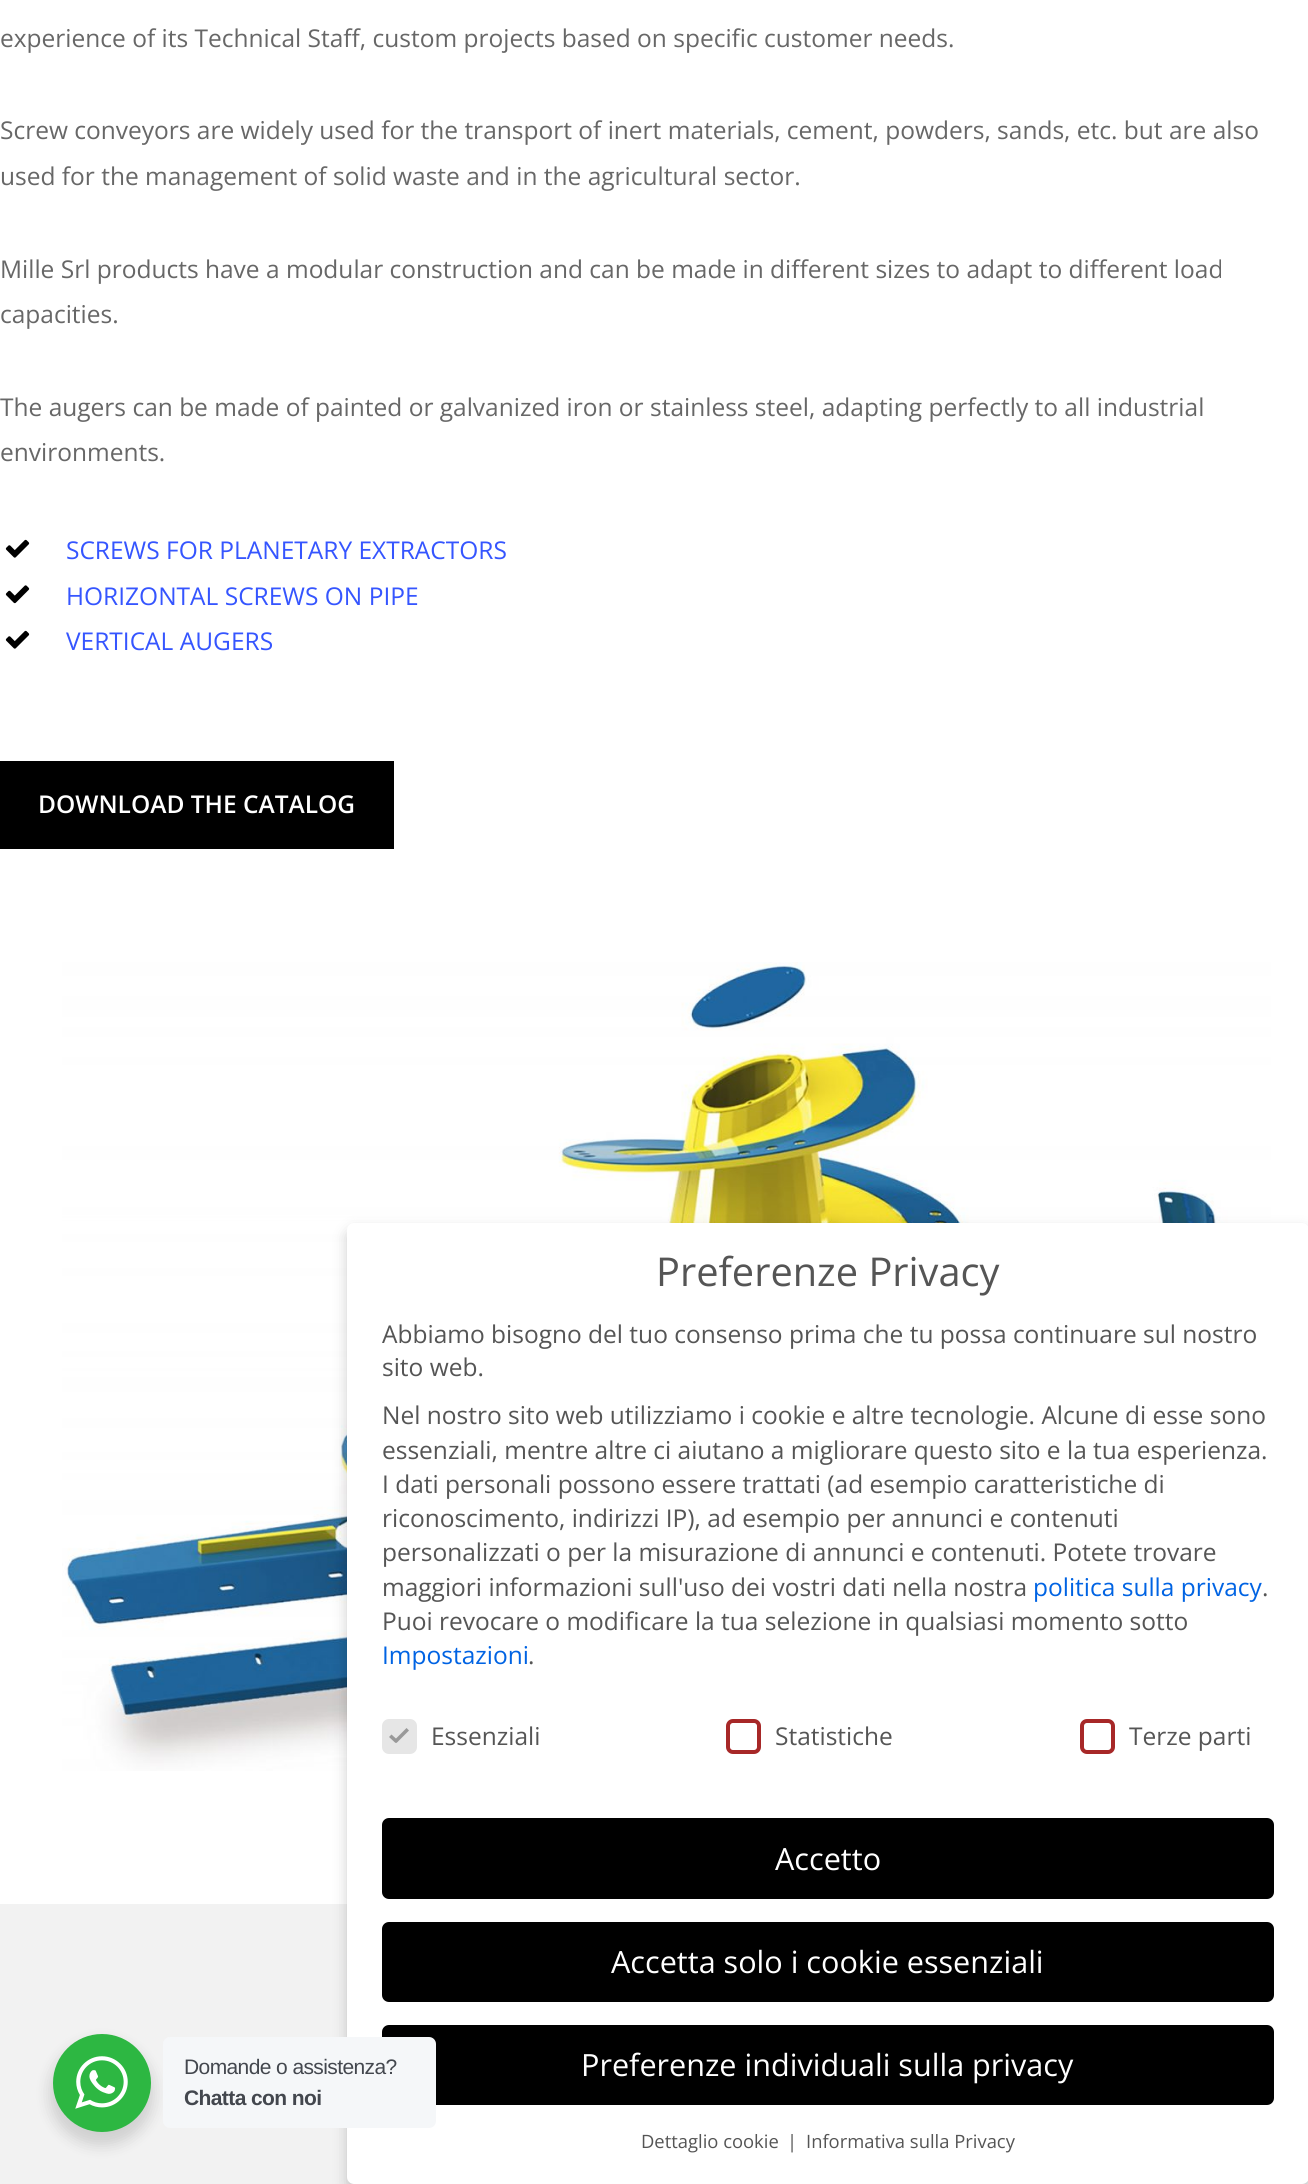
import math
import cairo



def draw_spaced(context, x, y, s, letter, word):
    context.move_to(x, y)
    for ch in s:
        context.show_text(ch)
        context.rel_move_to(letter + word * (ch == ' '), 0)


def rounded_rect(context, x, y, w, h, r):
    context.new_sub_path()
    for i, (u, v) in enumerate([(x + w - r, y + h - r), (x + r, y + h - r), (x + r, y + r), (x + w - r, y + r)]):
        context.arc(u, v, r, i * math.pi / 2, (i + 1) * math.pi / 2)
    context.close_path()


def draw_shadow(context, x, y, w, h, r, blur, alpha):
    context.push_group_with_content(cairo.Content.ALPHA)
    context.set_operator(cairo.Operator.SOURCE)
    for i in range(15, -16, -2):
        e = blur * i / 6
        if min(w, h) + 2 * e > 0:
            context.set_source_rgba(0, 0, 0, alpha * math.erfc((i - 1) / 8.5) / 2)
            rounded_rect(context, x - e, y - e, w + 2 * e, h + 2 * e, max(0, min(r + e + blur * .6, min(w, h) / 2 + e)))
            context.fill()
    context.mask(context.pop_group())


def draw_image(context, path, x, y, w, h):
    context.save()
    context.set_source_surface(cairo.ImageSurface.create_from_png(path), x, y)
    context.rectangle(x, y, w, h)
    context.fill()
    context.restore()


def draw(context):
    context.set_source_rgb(1, 1, 1)
    context.paint()
    draw_image(context, "images/1.png", 5, 539, 25, 19)
    draw_image(context, "images/2.png", 5, 585, 25, 19)
    draw_image(context, "images/1.png", 5, 630, 25, 19)
    context.set_source_rgb(0, 0, 0)
    context.rectangle(0, 761, 394, 88)
    context.fill()
    draw_image(context, "images/3.png", 62, 962, 1209, 809)
    context.set_source_rgb(242 / 255, 242 / 255, 242 / 255)
    context.rectangle(0, 1904, 1308, 280)
    context.fill()
    context.set_source_rgb(0, 0, 0)
    draw_shadow(context, 49, 2041, 105, 105, 52.5, 7, 0.14)
    context.set_source_rgb(45 / 255, 183 / 255, 66 / 255)
    context.arc(102, 2083, 49, 0, 2 * math.pi)
    context.fill()
    draw_image(context, "images/4.png", 75, 2056, 53, 53)
    context.set_source_rgb(0, 0, 0)
    draw_shadow(context, 347, 1230, 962, 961, 7, 7, 0.2)
    context.set_source_rgb(1, 1, 1)
    rounded_rect(context, 347, 1223, 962, 961, 7)
    context.fill()
    context.set_source_rgb(0, 0, 0)
    rounded_rect(context, 382, 2025, 892, 80, 7)
    context.fill()
    context.set_source_rgb(245 / 255, 247 / 255, 249 / 255)
    rounded_rect(context, 163, 2037, 273, 91, 7)
    context.fill()
    context.set_source_rgb(230 / 255, 230 / 255, 230 / 255)
    rounded_rect(context, 384, 1721, 31, 31, 5)
    context.fill_preserve()
    context.set_line_width(4)
    context.stroke()
    context.set_source_rgb(153 / 255, 153 / 255, 153 / 255)
    context.new_path()
    context.move_to(406.5, 1728)
    context.line_to(409, 1730.5)
    context.line_to(396.5, 1743)
    context.line_to(394, 1740.5)
    context.close_path()
    context.fill()
    context.new_path()
    context.move_to(391.5, 1734.5)
    context.line_to(398, 1740.5)
    context.line_to(395.5, 1743)
    context.line_to(389, 1737)
    context.close_path()
    context.fill()
    rounded_rect(context, 728, 1721, 31, 31, 5)
    context.set_source_rgb(167 / 255, 40 / 255, 40 / 255)
    context.stroke()
    rounded_rect(context, 1082, 1721, 31, 31, 5)
    context.stroke()
    context.set_source_rgb(0, 0, 0)
    rounded_rect(context, 382, 1818, 892, 81, 7)
    context.fill()
    rounded_rect(context, 382, 1922, 892, 80, 7)
    context.fill()
    context.select_font_face("Open Sans")
    context.set_font_size(24.5)
    context.set_source_rgb(103 / 255, 103 / 255, 103 / 255)
    context.move_to(0, 47)
    context.show_text("experience of its Technical Staff, custom projects based on specific customer needs.")
    context.move_to(0, 139)
    context.show_text("Screw conveyors are widely used for the transport of inert materials, cement, powders, sands, etc. but are also")
    context.move_to(0, 185)
    context.show_text("used for the management of solid waste and in the agricultural sector.")
    context.move_to(0, 278)
    context.show_text("Mille Srl products have a modular construction and can be made in different sizes to adapt to different load")
    context.move_to(0, 323)
    context.show_text("capacities.")
    context.move_to(0, 416)
    context.show_text("The augers can be made of painted or galvanized iron or stainless steel, adapting perfectly to all industrial")
    context.move_to(0, 461)
    context.show_text("environments.")
    context.set_source_rgb(53 / 255, 85 / 255, 1)
    context.move_to(66, 559)
    context.show_text("SCREWS FOR PLANETARY EXTRACTORS")
    context.move_to(66, 605)
    context.show_text("HORIZONTAL SCREWS ON PIPE")
    context.move_to(66, 650)
    context.show_text("VERTICAL AUGERS")
    context.select_font_face("Open Sans SemiBold")
    context.set_source_rgb(1, 1, 1)
    context.move_to(38, 813)
    context.show_text("DOWNLOAD THE CATALOG")
    context.select_font_face("Liberation Sans")
    context.set_font_size(21)
    context.set_source_rgb(67 / 255, 71 / 255, 78 / 255)
    draw_spaced(context, 184, 2074, "Domande o assistenza?", -0.6, 0)
    context.select_font_face("Liberation Sans", cairo.FontSlant.NORMAL, cairo.FontWeight.BOLD)
    draw_spaced(context, 184, 2105, "Chatta con noi", -0.6, 0)
    context.select_font_face("Open Sans")
    context.set_font_size(39.75)
    context.set_source_rgb(85 / 255, 85 / 255, 85 / 255)
    context.move_to(656, 1286)
    context.show_text("Preferenze Privacy")
    context.set_font_size(24.5)
    context.move_to(382, 1343)
    context.show_text("Abbiamo bisogno del tuo consenso prima che tu possa continuare sul nostro")
    context.move_to(382, 1376)
    context.show_text("sito web.")
    context.move_to(382, 1424)
    context.show_text("Nel nostro sito web utilizziamo i cookie e altre tecnologie. Alcune di esse sono")
    context.move_to(382, 1459)
    context.show_text("essenziali, mentre altre ci aiutano a migliorare questo sito e la tua esperienza.")
    context.move_to(382, 1493)
    context.show_text("I dati personali possono essere trattati (ad esempio caratteristiche di")
    context.move_to(382, 1527)
    context.show_text("riconoscimento, indirizzi IP), ad esempio per annunci e contenuti")
    context.move_to(382, 1561)
    context.show_text("personalizzati o per la misurazione di annunci e contenuti. Potete trovare")
    context.move_to(382, 1596)
    context.show_text("maggiori informazioni sull'uso dei vostri dati nella nostra")
    context.set_source_rgb(0, 99 / 255, 227 / 255)
    context.move_to(1033, 1596)
    context.show_text("politica sulla privacy")
    context.set_source_rgb(85 / 255, 85 / 255, 85 / 255)
    context.move_to(1262, 1596)
    context.show_text(".")
    context.move_to(382, 1630)
    context.show_text("Puoi revocare o modificare la tua selezione in qualsiasi momento sotto")
    context.set_source_rgb(0, 99 / 255, 227 / 255)
    context.move_to(382, 1664)
    context.show_text("Impostazioni")
    context.set_source_rgb(85 / 255, 85 / 255, 85 / 255)
    context.move_to(528, 1664)
    context.show_text(".")
    context.move_to(431, 1745)
    context.show_text("Essenziali")
    context.move_to(775, 1745)
    context.show_text("Statistiche")
    context.move_to(1129, 1745)
    context.show_text("Terze parti")
    context.set_font_size(30.6)
    context.set_source_rgb(1, 1, 1)
    context.move_to(775, 1870)
    context.show_text("Accetto")
    context.move_to(611, 1973)
    context.show_text("Accetta solo i cookie essenziali")
    context.move_to(581, 2076)
    context.show_text("Preferenze individuali sulla privacy")
    context.set_font_size(18.4)
    context.set_source_rgb(85 / 255, 85 / 255, 85 / 255)
    context.move_to(641, 2148)
    context.show_text("Dettaglio cookie")
    context.move_to(787, 2148)
    context.show_text("|")
    context.move_to(806, 2148)
    context.show_text("Informativa sulla Privacy")


surface = cairo.ImageSurface(cairo.Format.RGB24, 1308, 2184)
context = cairo.Context(surface)
options = cairo.FontOptions()
options.set_hint_metrics(cairo.HintMetrics.OFF)
options.set_hint_style(cairo.HintStyle.NONE)
context.set_font_options(options)
context.set_miter_limit(4)
draw(context)
surface.write_to_png("out.png")
